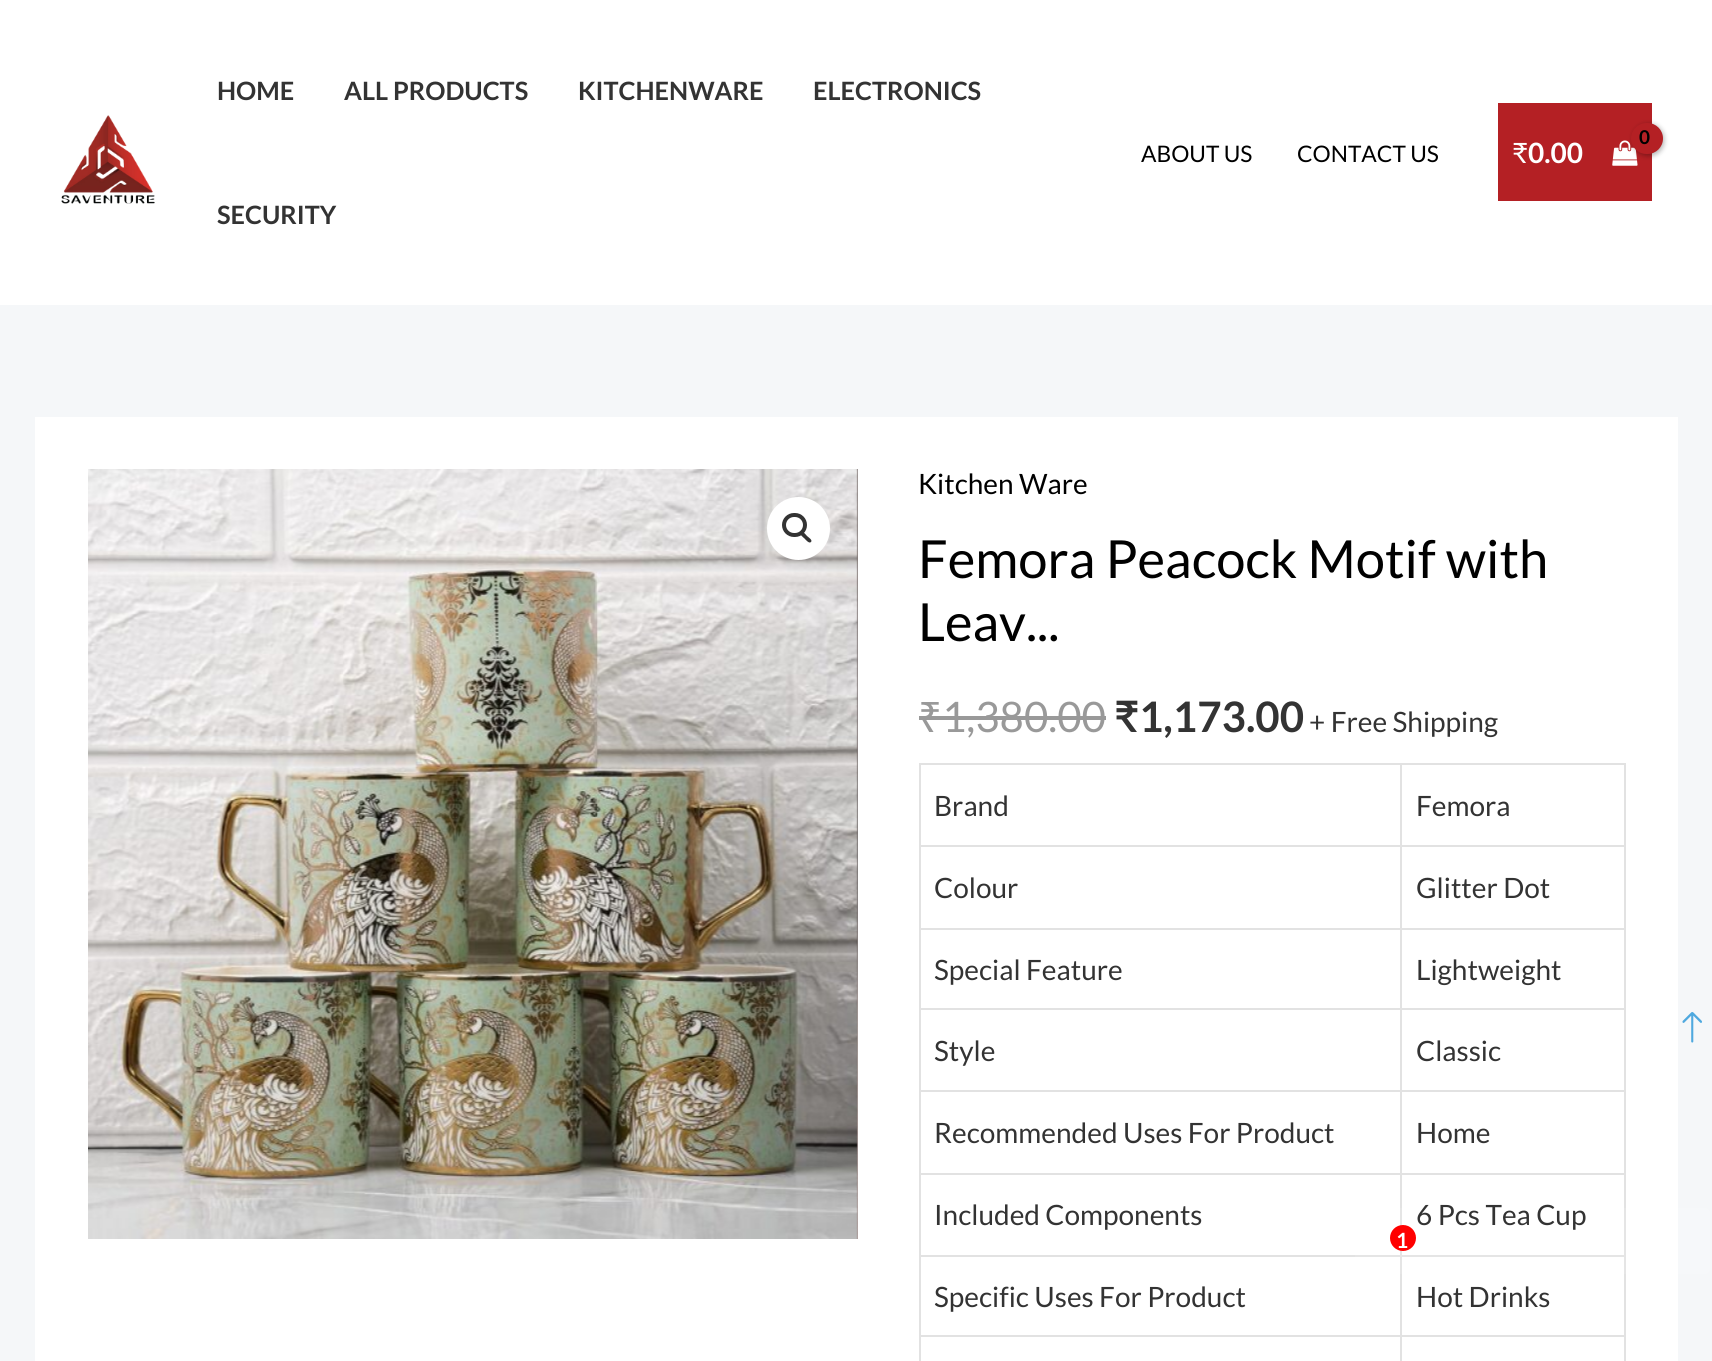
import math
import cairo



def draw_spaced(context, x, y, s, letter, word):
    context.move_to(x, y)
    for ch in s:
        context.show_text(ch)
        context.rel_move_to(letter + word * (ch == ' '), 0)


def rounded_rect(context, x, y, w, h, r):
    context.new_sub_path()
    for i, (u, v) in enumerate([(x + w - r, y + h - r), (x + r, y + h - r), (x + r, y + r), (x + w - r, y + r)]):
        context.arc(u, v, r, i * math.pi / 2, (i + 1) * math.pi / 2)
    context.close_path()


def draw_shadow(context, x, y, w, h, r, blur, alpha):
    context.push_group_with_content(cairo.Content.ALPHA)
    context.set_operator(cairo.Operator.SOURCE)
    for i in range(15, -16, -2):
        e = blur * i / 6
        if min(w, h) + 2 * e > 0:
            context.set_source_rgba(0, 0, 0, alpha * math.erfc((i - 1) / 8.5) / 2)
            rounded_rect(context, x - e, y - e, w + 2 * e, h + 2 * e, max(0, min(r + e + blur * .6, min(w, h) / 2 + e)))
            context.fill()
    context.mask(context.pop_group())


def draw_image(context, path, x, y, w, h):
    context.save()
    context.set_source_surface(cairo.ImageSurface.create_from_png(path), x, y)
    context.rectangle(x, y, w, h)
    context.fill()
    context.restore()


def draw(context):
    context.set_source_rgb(245 / 255, 247 / 255, 249 / 255)
    context.paint()
    context.set_source_rgb(1, 1, 1)
    context.rectangle(0, 0, 1712, 305)
    context.fill()
    draw_image(context, "images/1.png", 61, 115, 94, 89)
    context.set_source_rgb(180 / 255, 32 / 255, 36 / 255)
    context.rectangle(1498, 103, 154, 98)
    context.fill()
    draw_image(context, "images/2.png", 1612, 140, 26, 26)
    context.set_source_rgb(0, 0, 0)
    draw_shadow(context, 1633, 124, 31, 32, 15.5, 2.5, 0.3)
    context.set_source_rgb(180 / 255, 32 / 255, 36 / 255)
    rounded_rect(context, 1631, 123, 32, 31, 15.5)
    context.fill()
    context.set_source_rgb(1, 1, 1)
    context.rectangle(35, 417, 1643, 944)
    context.fill()
    draw_image(context, "images/3.png", 88, 469, 770, 770)
    draw_image(context, "images/4.png", 856, 469, 2, 770)
    context.arc(798.5, 528.5, 31.5, 0, 2 * math.pi)
    context.fill()
    rounded_rect(context, 784, 515, 21, 20, 10)
    context.set_source_rgb(51 / 255, 51 / 255, 51 / 255)
    context.set_line_width(4)
    context.stroke()
    context.new_path()
    context.move_to(801, 532.5)
    context.curve_to(803, 530.5, 806, 535, 807, 536)
    context.curve_to(808, 537, 813, 540, 811, 542)
    context.curve_to(809, 544, 805.5, 539.5, 804.5, 538.5)
    context.curve_to(803.5, 537.5, 799, 534.5, 801, 532.5)
    context.close_path()
    context.fill()
    context.set_source_rgb(153 / 255, 153 / 255, 153 / 255)
    context.rectangle(919, 716, 23, 4)
    context.fill()
    context.rectangle(942, 716, 164, 4)
    context.fill()
    context.set_source_rgb(226 / 255, 226 / 255, 226 / 255)
    context.rectangle(919, 763, 707, 2)
    context.fill()
    context.rectangle(919, 763, 2, 598)
    context.fill()
    context.rectangle(1400, 765, 2, 164)
    context.fill()
    context.rectangle(921, 845, 481, 2)
    context.fill()
    context.rectangle(1624, 765, 2, 164)
    context.fill()
    context.rectangle(1402, 845, 224, 2)
    context.fill()
    context.rectangle(921, 928, 705, 2)
    context.fill()
    context.rectangle(1400, 929, 2, 245)
    context.fill()
    context.rectangle(921, 1008, 481, 2)
    context.fill()
    context.rectangle(1624, 929, 2, 245)
    context.fill()
    context.rectangle(1402, 1008, 224, 2)
    context.fill()
    context.rectangle(921, 1090, 705, 2)
    context.fill()
    context.rectangle(921, 1173, 705, 2)
    context.fill()
    context.rectangle(1400, 1174, 2, 187)
    context.fill()
    context.rectangle(921, 1255, 481, 2)
    context.fill()
    context.rectangle(1624, 1174, 2, 187)
    context.fill()
    context.rectangle(1402, 1255, 224, 2)
    context.fill()
    context.rectangle(921, 1335, 705, 2)
    context.fill()
    draw_image(context, "images/5.png", 1682, 1012, 20, 31)
    context.set_source_rgba(1, 1, 1, 0.1)
    rounded_rect(context, 1355, 1208, 355, 66, 5)
    context.fill()
    context.set_source_rgb(1, 0, 0)
    context.arc(1403, 1238, 13, 0, 2 * math.pi)
    context.fill()
    context.select_font_face("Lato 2", cairo.FontSlant.NORMAL, cairo.FontWeight.BOLD)
    context.set_font_size(25.25)
    context.set_source_rgb(51 / 255, 51 / 255, 51 / 255)
    context.move_to(217, 100)
    context.show_text("HOME")
    context.move_to(344, 100)
    context.show_text("ALL PRODUCTS")
    context.move_to(578, 100)
    context.show_text("KITCHENWARE")
    context.move_to(813, 100)
    context.show_text("ELECTRONICS")
    context.move_to(217, 224)
    context.show_text("SECURITY")
    context.select_font_face("Lato")
    context.set_font_size(22.75)
    context.set_source_rgb(0, 0, 0)
    context.move_to(1141, 162)
    context.show_text("ABOUT US")
    context.move_to(1297, 162)
    context.show_text("CONTACT US")
    context.select_font_face("Lato 2", cairo.FontSlant.NORMAL, cairo.FontWeight.BOLD)
    context.set_font_size(19)
    draw_spaced(context, 1639, 144, "0", -1, 0)
    context.select_font_face("Lato 2")
    context.set_font_size(28)
    context.set_source_rgb(1, 1, 1)
    context.move_to(1512, 163)
    context.show_text("₹")
    context.select_font_face("Lato 2", cairo.FontSlant.NORMAL, cairo.FontWeight.BOLD)
    context.move_to(1528, 163)
    context.show_text("0.00")
    context.select_font_face("Lato")
    context.set_source_rgb(0, 0, 0)
    context.move_to(918, 494)
    context.show_text("Kitchen Ware")
    context.set_font_size(52.5)
    context.move_to(918, 578)
    context.show_text("Femora Peacock Motif with")
    context.move_to(918, 641)
    context.show_text("Leav...")
    context.select_font_face("Noto Sans")
    context.set_font_size(42)
    context.set_source_rgb(153 / 255, 153 / 255, 153 / 255)
    context.move_to(918, 732)
    context.show_text("₹")
    context.select_font_face("Lato")
    context.move_to(942, 732)
    context.show_text("1,380.00")
    context.select_font_face("Lato", cairo.FontSlant.NORMAL, cairo.FontWeight.BOLD)
    context.set_source_rgb(51 / 255, 51 / 255, 51 / 255)
    context.move_to(1114, 732)
    context.show_text("₹")
    context.select_font_face("Lato 2", cairo.FontSlant.NORMAL, cairo.FontWeight.BOLD)
    context.move_to(1139, 732)
    context.show_text("1,173.00")
    context.select_font_face("Lato")
    context.set_font_size(28)
    context.move_to(1309, 732)
    context.show_text("+ Free Shipping")
    context.move_to(934, 816)
    context.show_text("Brand")
    context.move_to(1416, 816)
    context.show_text("Femora")
    context.move_to(934, 898)
    context.show_text("Colour")
    context.move_to(1416, 898)
    context.show_text("Glitter Dot")
    context.move_to(934, 980)
    context.show_text("Special Feature")
    context.move_to(1416, 980)
    context.show_text("Lightweight")
    context.move_to(934, 1061)
    context.show_text("Style")
    context.move_to(1416, 1061)
    context.show_text("Classic")
    context.move_to(934, 1143)
    context.show_text("Recommended Uses For Product")
    context.move_to(1416, 1143)
    context.show_text("Home")
    context.move_to(934, 1225)
    context.show_text("Included Components")
    context.move_to(1416, 1225)
    context.show_text("6 Pcs Tea Cup")
    context.move_to(934, 1307)
    context.show_text("Specific Uses For Product")
    context.move_to(1416, 1307)
    context.show_text("Hot Drinks")
    context.select_font_face("Lato 2", cairo.FontSlant.NORMAL, cairo.FontWeight.BOLD)
    context.set_font_size(21)
    context.set_source_rgb(1, 1, 1)
    draw_spaced(context, 1396, 1248, "1", 2, 0)


surface = cairo.ImageSurface(cairo.Format.RGB24, 1712, 1361)
context = cairo.Context(surface)
options = cairo.FontOptions()
options.set_hint_metrics(cairo.HintMetrics.OFF)
options.set_hint_style(cairo.HintStyle.NONE)
context.set_font_options(options)
context.set_miter_limit(4)
draw(context)
surface.write_to_png("out.png")
